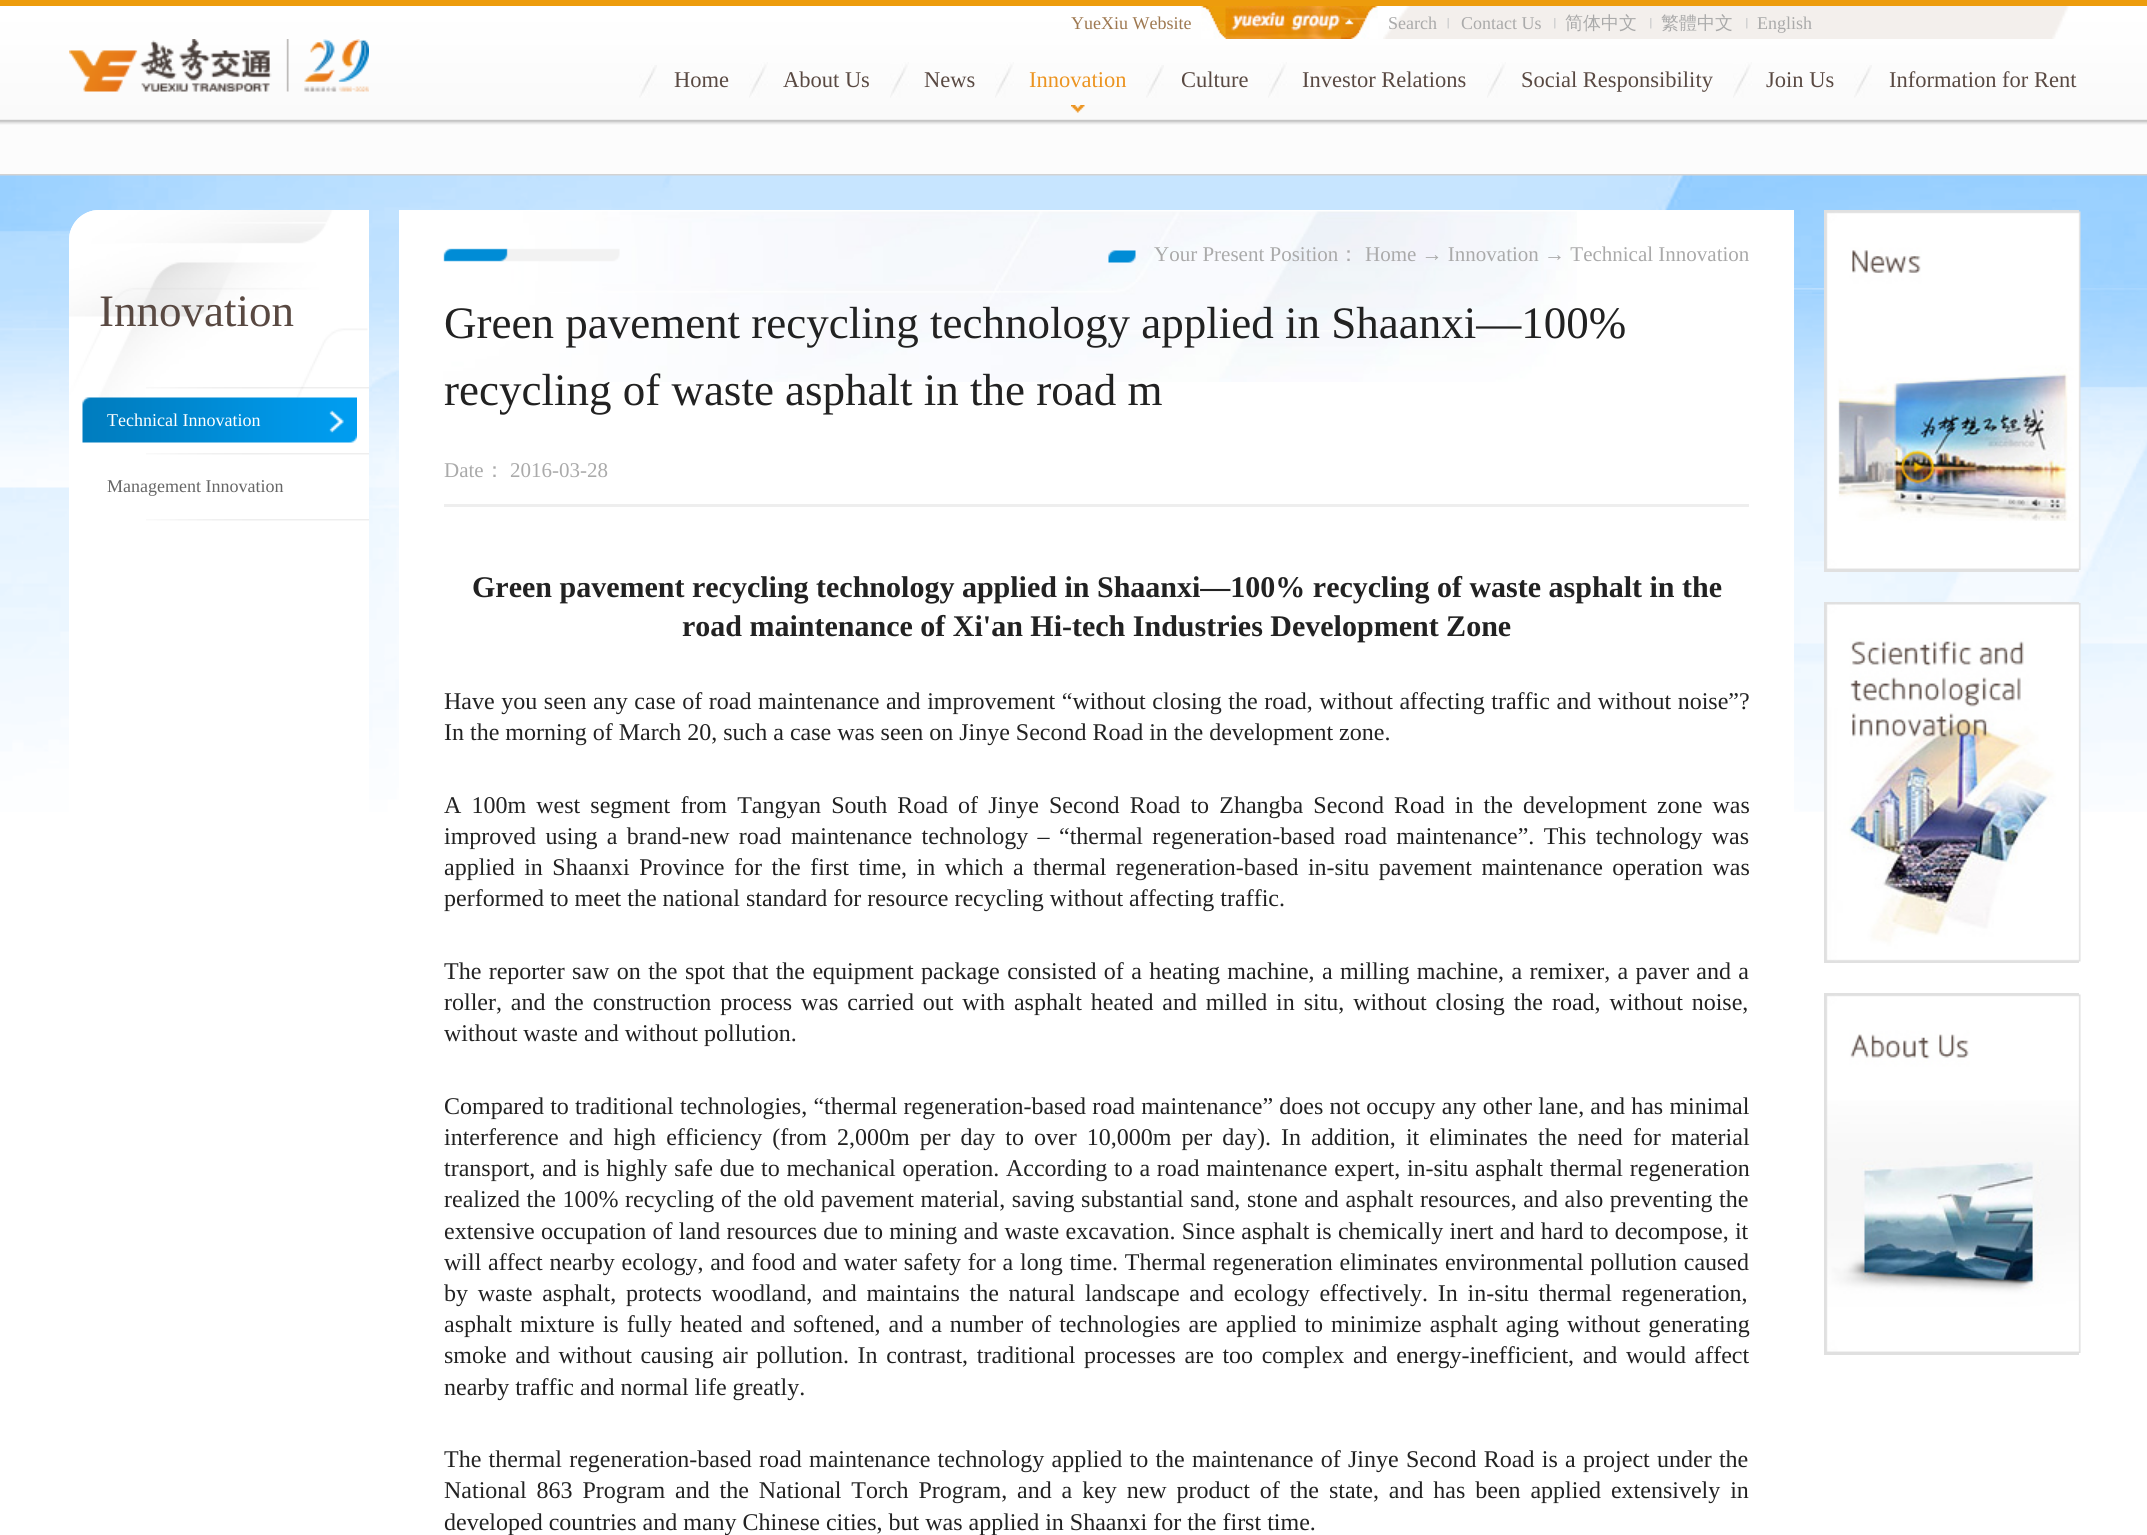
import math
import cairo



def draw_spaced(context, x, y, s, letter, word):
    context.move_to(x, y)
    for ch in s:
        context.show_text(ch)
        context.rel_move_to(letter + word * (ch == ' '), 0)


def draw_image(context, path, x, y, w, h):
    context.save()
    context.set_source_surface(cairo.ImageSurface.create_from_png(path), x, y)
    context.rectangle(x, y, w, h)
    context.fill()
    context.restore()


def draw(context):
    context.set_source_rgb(1, 1, 1)
    context.paint()
    context.set_source_rgb(237 / 255, 156 / 255, 13 / 255)
    context.rectangle(0, 0, 2147, 6)
    context.fill()
    draw_image(context, "images/1.png", 0, 6, 2147, 119)
    draw_image(context, "images/2.png", 1383, 6, 686, 33)
    draw_image(context, "images/3.png", 1201, 6, 177, 33)
    draw_image(context, "images/4.png", 1447, 18, 2, 11)
    draw_image(context, "images/5.png", 1554, 18, 2, 11)
    draw_image(context, "images/5.png", 1650, 18, 2, 11)
    draw_image(context, "images/5.png", 1746, 18, 2, 11)
    draw_image(context, "images/6.png", 69, 39, 300, 53)
    draw_image(context, "images/7.png", 639, 65, 18, 33)
    draw_image(context, "images/8.png", 749, 62, 19, 36)
    draw_image(context, "images/9.png", 890, 62, 19, 36)
    draw_image(context, "images/9.png", 995, 62, 19, 36)
    draw_image(context, "images/10.png", 1071, 105, 14, 8)
    draw_image(context, "images/7.png", 1146, 65, 18, 33)
    draw_image(context, "images/11.png", 1268, 62, 19, 36)
    draw_image(context, "images/8.png", 1487, 62, 19, 36)
    draw_image(context, "images/9.png", 1733, 62, 19, 36)
    draw_image(context, "images/12.png", 1854, 65, 18, 33)
    context.set_source_rgb(252 / 255, 252 / 255, 252 / 255)
    context.rectangle(0, 125, 2147, 49)
    context.fill()
    context.set_source_rgb(210 / 255, 210 / 255, 210 / 255)
    context.rectangle(0, 174, 2147, 2)
    context.fill()
    draw_image(context, "images/13.png", 0, 175, 2147, 637)
    context.set_source_rgb(1, 1, 1)
    context.new_path()
    context.move_to(99, 210)
    context.line_to(369, 210)
    context.line_to(369, 1005)
    context.line_to(69, 1005)
    context.line_to(69, 240)
    context.curve_to(69, 223.5, 82.5, 210, 99, 210)
    context.close_path()
    context.fill()
    draw_image(context, "images/14.png", 69, 210, 299, 195)
    draw_image(context, "images/15.png", 146, 387, 223, 2)
    draw_image(context, "images/16.png", 146, 453, 223, 2)
    draw_image(context, "images/17.png", 82, 397, 275, 46)
    draw_image(context, "images/16.png", 146, 519, 223, 2)
    context.rectangle(399, 210, 1395, 602)
    context.fill()
    draw_image(context, "images/18.png", 443, 211, 1134, 171)
    draw_image(context, "images/19.png", 1108, 250, 28, 13)
    context.set_source_rgb(238 / 255, 238 / 255, 238 / 255)
    context.rectangle(444, 504, 1305, 3)
    context.fill()
    context.rectangle(1825, 211, 253, 360)
    context.set_source_rgb(224 / 255, 224 / 255, 224 / 255)
    context.stroke()
    draw_image(context, "images/20.png", 1826, 211, 255, 359)
    context.rectangle(1825, 603, 253, 359)
    context.stroke()
    draw_image(context, "images/21.png", 1826, 603, 255, 359)
    context.rectangle(1825, 994, 253, 360)
    context.stroke()
    draw_image(context, "images/22.png", 1826, 994, 255, 359)
    context.select_font_face("Liberation Serif")
    context.set_font_size(18)
    context.set_source_rgb(158 / 255, 120 / 255, 80 / 255)
    context.move_to(1071, 29)
    context.show_text("YueXiu Website")
    context.set_source_rgb(170 / 255, 170 / 255, 170 / 255)
    context.move_to(1388, 29)
    context.show_text("Search")
    context.move_to(1461, 29)
    context.show_text("Contact Us")
    context.select_font_face("WenQuanYi Zen Hei Medium")
    context.move_to(1565, 29)
    context.show_text("简体中文")
    context.move_to(1661, 29)
    context.show_text("繁體中文")
    context.select_font_face("Liberation Serif")
    context.move_to(1757, 29)
    context.show_text("English")
    context.set_font_size(22.5)
    context.set_source_rgb(89 / 255, 73 / 255, 66 / 255)
    context.move_to(674, 87)
    context.show_text("Home")
    context.move_to(783, 87)
    context.show_text("About Us")
    context.move_to(924, 87)
    context.show_text("News")
    context.set_source_rgb(236 / 255, 148 / 255, 32 / 255)
    context.move_to(1029, 87)
    context.show_text("Innovation")
    context.set_source_rgb(89 / 255, 73 / 255, 66 / 255)
    context.move_to(1181, 87)
    context.show_text("Culture")
    context.move_to(1302, 87)
    context.show_text("Investor Relations")
    context.move_to(1521, 87)
    context.show_text("Social Responsibility")
    context.move_to(1766, 87)
    context.show_text("Join Us")
    context.move_to(1889, 87)
    context.show_text("Information for Rent")
    context.set_font_size(45)
    context.move_to(99, 326)
    context.show_text("Innovation")
    context.set_font_size(18)
    context.set_source_rgb(1, 1, 1)
    context.move_to(107, 426)
    context.show_text("Technical Innovation")
    context.set_source_rgb(102 / 255, 102 / 255, 102 / 255)
    context.move_to(107, 492)
    context.show_text("Management Innovation")
    context.set_font_size(21)
    context.set_source_rgb(170 / 255, 170 / 255, 170 / 255)
    context.move_to(1154, 261)
    context.show_text("Your Present Position")
    context.select_font_face("WenQuanYi Zen Hei Medium")
    context.move_to(1338, 261)
    context.show_text("：")
    context.select_font_face("Liberation Serif")
    context.move_to(1365, 261)
    context.show_text("Home → Innovation → Technical Innovation")
    context.set_font_size(45)
    context.set_source_rgb(34 / 255, 34 / 255, 34 / 255)
    context.move_to(444, 338)
    context.show_text("Green pavement recycling technology applied in Shaanxi—100%")
    context.move_to(444, 405)
    context.show_text("recycling of waste asphalt in the road m")
    context.set_font_size(21)
    context.set_source_rgb(170 / 255, 170 / 255, 170 / 255)
    context.move_to(444, 477)
    context.show_text("Date")
    context.select_font_face("WenQuanYi Zen Hei Medium")
    context.move_to(484, 477)
    context.show_text("：")
    context.select_font_face("Liberation Serif")
    context.move_to(510, 477)
    context.show_text("2016-03-28")
    context.select_font_face("Liberation Serif", cairo.FontSlant.NORMAL, cairo.FontWeight.BOLD)
    context.set_font_size(30)
    context.set_source_rgb(34 / 255, 34 / 255, 34 / 255)
    context.move_to(472, 597)
    context.show_text("Green pavement recycling technology applied in Shaanxi—100% recycling of waste asphalt in the")
    context.move_to(682, 636)
    context.show_text("road maintenance of Xi'an Hi-tech Industries Development Zone")
    context.select_font_face("Liberation Serif")
    context.set_font_size(24)
    draw_spaced(context, 444, 709, "Have you seen any case of road maintenance and improvement “without closing the road, without affecting traffic and without noise”?", 0, 0.6)
    context.move_to(444, 740)
    context.show_text("In the morning of March 20, such a case was seen on Jinye Second Road in the development zone.")
    draw_spaced(context, 444, 813, "A 100m west segment from Tangyan South Road of Jinye Second Road to Zhangba Second Road in the development zone was", 0, 4.1)
    draw_spaced(context, 444, 844, "improved using a brand-new road maintenance technology – “thermal regeneration-based road maintenance”. This technology was", 0, 3.4)
    draw_spaced(context, 444, 875, "applied in Shaanxi Province for the first time, in which a thermal regeneration-based in-situ pavement maintenance operation was", 0, 3.5)
    context.move_to(444, 906)
    context.show_text("performed to meet the national standard for resource recycling without affecting traffic.")
    draw_spaced(context, 444, 979, "The reporter saw on the spot that the equipment package consisted of a heating machine, a milling machine, a remixer, a paver and a", 0, 1.4)
    draw_spaced(context, 444, 1010, "roller, and the construction process was carried out with asphalt heated and milled in situ, without closing the road, without noise,", 0, 2.9)
    context.move_to(444, 1041)
    context.show_text("without waste and without pollution.")
    draw_spaced(context, 444, 1114, "Compared to traditional technologies, “thermal regeneration-based road maintenance” does not occupy any other lane, and has minimal", 0, 0.2)
    draw_spaced(context, 444, 1145, "interference and high efficiency (from 2,000m per day to over 10,000m per day). In addition, it eliminates the need for material", 0, 4.1)
    draw_spaced(context, 444, 1176, "transport, and is highly safe due to mechanical operation. According to a road maintenance expert, in-situ asphalt thermal regeneration", 0, 0.75)
    draw_spaced(context, 444, 1207, "realized the 100% recycling of the old pavement material, saving substantial sand, stone and asphalt resources, and also preventing the", 0, 0.6)
    draw_spaced(context, 444, 1239, "extensive occupation of land resources due to mining and waste excavation. Since asphalt is chemically inert and hard to decompose, it", 0, 0.3)
    draw_spaced(context, 444, 1270, "will affect nearby ecology, and food and water safety for a long time. Thermal regeneration eliminates environmental pollution caused", 0, 0.75)
    draw_spaced(context, 444, 1301, "by waste asphalt, protects woodland, and maintains the natural landscape and ecology effectively. In in-situ thermal regeneration,", 0, 3.75)
    draw_spaced(context, 444, 1332, "asphalt mixture is fully heated and softened, and a number of technologies are applied to minimize asphalt aging without generating", 0, 2)
    draw_spaced(context, 444, 1363, "smoke and without causing air pollution. In contrast, traditional processes are too complex and energy-inefficient, and would affect", 0, 2.6)
    context.move_to(444, 1395)
    context.show_text("nearby traffic and normal life greatly.")
    draw_spaced(context, 444, 1467, "The thermal regeneration-based road maintenance technology applied to the maintenance of Jinye Second Road is a project under the", 0, 1.3)
    draw_spaced(context, 444, 1498, "National 863 Program and the National Torch Program, and a key new product of the state, and has been applied extensively in", 0, 3.9)
    context.move_to(444, 1530)
    context.show_text("developed countries and many Chinese cities, but was applied in Shaanxi for the first time.")


surface = cairo.ImageSurface(cairo.Format.RGB24, 2147, 1535)
context = cairo.Context(surface)
options = cairo.FontOptions()
options.set_hint_metrics(cairo.HintMetrics.OFF)
options.set_hint_style(cairo.HintStyle.NONE)
context.set_font_options(options)
context.set_miter_limit(4)
draw(context)
surface.write_to_png("out.png")
